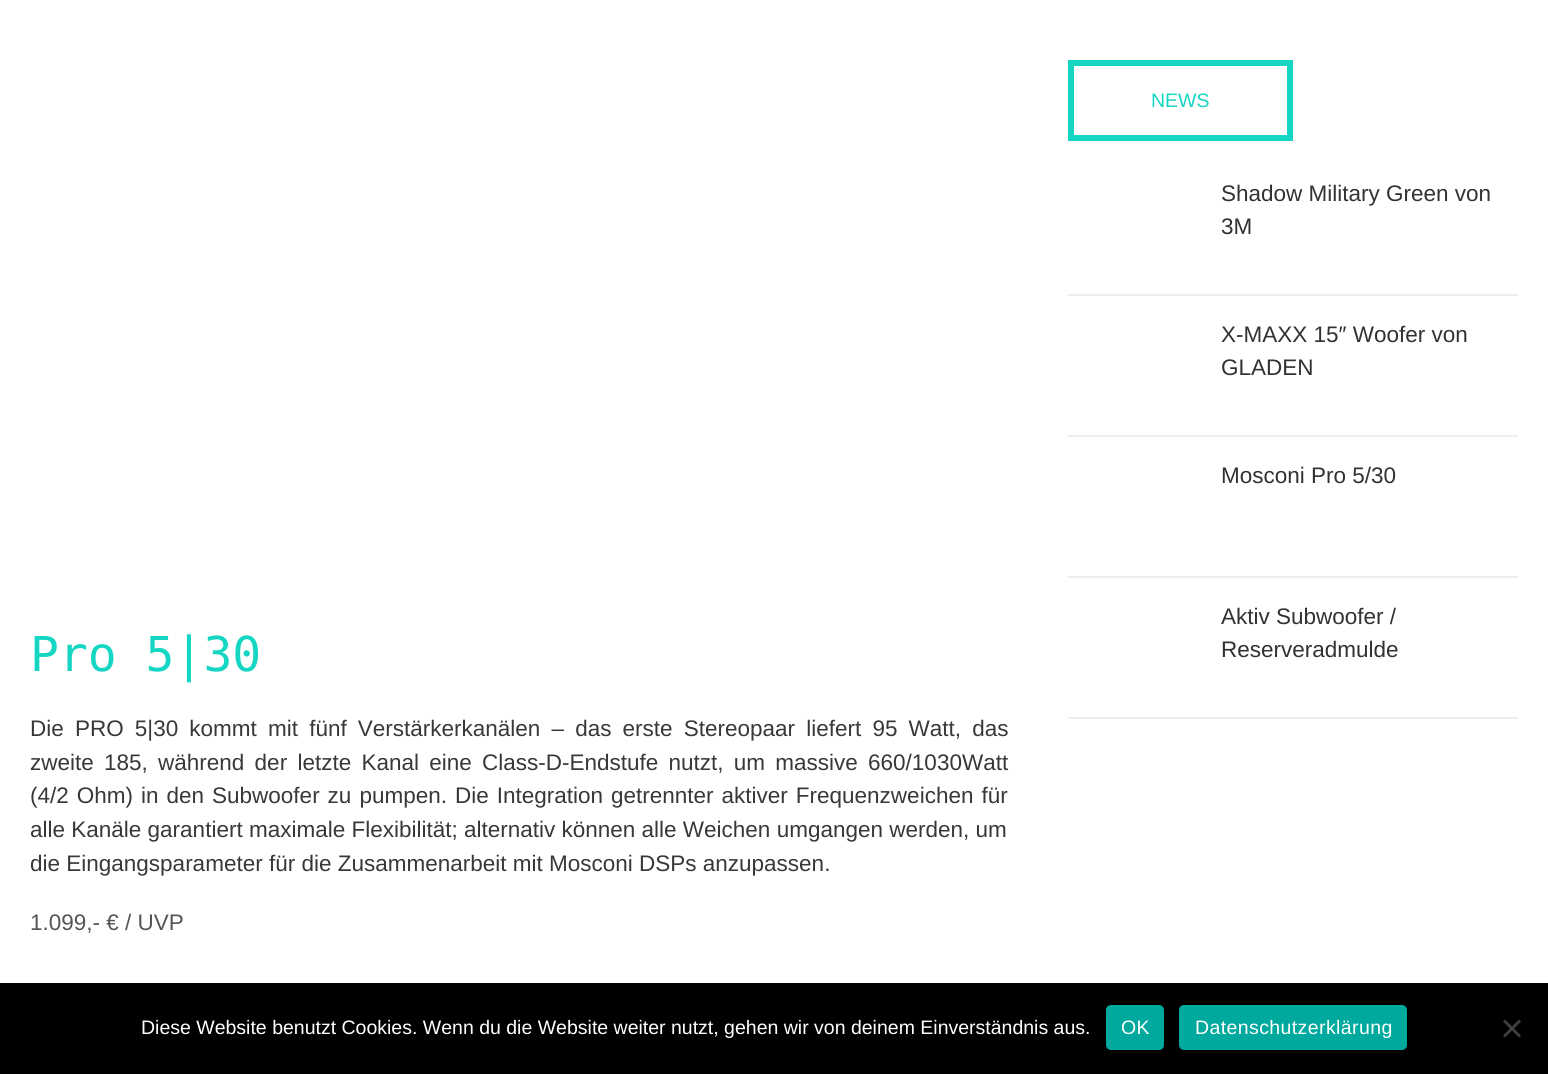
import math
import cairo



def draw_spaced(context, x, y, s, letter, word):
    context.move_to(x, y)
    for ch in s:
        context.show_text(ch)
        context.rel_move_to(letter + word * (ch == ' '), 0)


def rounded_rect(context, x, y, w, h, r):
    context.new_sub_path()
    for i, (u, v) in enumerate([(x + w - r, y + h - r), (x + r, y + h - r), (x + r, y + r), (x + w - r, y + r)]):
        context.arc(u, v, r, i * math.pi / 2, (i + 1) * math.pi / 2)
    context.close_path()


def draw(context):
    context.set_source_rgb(1, 1, 1)
    context.paint()
    context.rectangle(1071, 63, 219, 75)
    context.set_source_rgb(21 / 255, 214 / 255, 195 / 255)
    context.set_line_width(6)
    context.stroke()
    context.set_source_rgb(238 / 255, 238 / 255, 238 / 255)
    context.rectangle(1068, 294, 450, 2)
    context.fill()
    context.rectangle(1068, 435, 450, 2)
    context.fill()
    context.rectangle(1068, 576, 450, 2)
    context.fill()
    context.rectangle(1068, 717, 450, 2)
    context.fill()
    context.set_source_rgb(0, 0, 0)
    context.rectangle(0, 983, 1548, 91)
    context.fill()
    context.set_source_rgb(0, 169 / 255, 157 / 255)
    rounded_rect(context, 1106, 1005, 58, 45, 5)
    context.fill()
    rounded_rect(context, 1179, 1005, 228, 45, 5)
    context.fill()
    context.set_source_rgb(64 / 255, 64 / 255, 64 / 255)
    context.new_path()
    context.move_to(1519, 1019.5)
    context.line_to(1521, 1021.5)
    context.line_to(1505, 1037.5)
    context.line_to(1503, 1035.5)
    context.close_path()
    context.fill()
    context.new_path()
    context.move_to(1503, 1021.5)
    context.line_to(1505, 1019.5)
    context.line_to(1521, 1035.5)
    context.line_to(1519, 1037.5)
    context.close_path()
    context.fill()
    context.select_font_face("Liberation Sans")
    context.set_font_size(19.5)
    context.set_source_rgb(21 / 255, 214 / 255, 195 / 255)
    context.move_to(1151, 107)
    context.show_text("NEWS")
    context.set_font_size(22.5)
    context.set_source_rgb(51 / 255, 50 / 255, 50 / 255)
    context.move_to(1221, 201)
    context.show_text("Shadow Military Green von")
    context.move_to(1221, 234)
    context.show_text("3M")
    context.move_to(1221, 342)
    context.show_text("X-MAXX 15″ Woofer von")
    context.move_to(1221, 375)
    context.show_text("GLADEN")
    context.move_to(1221, 483)
    context.show_text("Mosconi Pro 5/30")
    context.move_to(1221, 624)
    context.show_text("Aktiv Subwoofer /")
    context.move_to(1221, 657)
    context.show_text("Reserveradmulde")
    context.select_font_face("DejaVu Sans Mono")
    context.set_font_size(48)
    context.set_source_rgb(21 / 255, 214 / 255, 195 / 255)
    context.move_to(30, 671)
    context.show_text("Pro 5|30")
    context.select_font_face("Liberation Sans")
    context.set_font_size(22.5)
    context.set_source_rgb(56 / 255, 56 / 255, 56 / 255)
    draw_spaced(context, 30, 736, "Die PRO 5|30 kommt mit fünf Verstärkerkanälen – das erste Stereopaar liefert 95 Watt, das", 0, 4.9)
    draw_spaced(context, 30, 770, "zweite 185, während der letzte Kanal eine Class-D-Endstufe nutzt, um massive 660/1030Watt", 0, 4)
    draw_spaced(context, 30, 803, "(4/2 Ohm) in den Subwoofer zu pumpen. Die Integration getrennter aktiver Frequenzweichen für", 0, 1.75)
    context.move_to(30, 837)
    context.show_text("alle Kanäle garantiert maximale Flexibilität; alternativ können alle Weichen umgangen werden, um")
    context.move_to(30, 871)
    context.show_text("die Eingangsparameter für die Zusammenarbeit mit Mosconi DSPs anzupassen.")
    context.set_source_rgb(85 / 255, 85 / 255, 85 / 255)
    context.move_to(30, 930)
    context.show_text("1.099,- € / UVP")
    context.set_font_size(19.5)
    context.set_source_rgb(1, 1, 1)
    context.move_to(141, 1034)
    context.show_text("Diese Website benutzt Cookies. Wenn du die Website weiter nutzt, gehen wir von deinem Einverständnis aus.")
    draw_spaced(context, 1121, 1034, "OK", 0.4, 0)
    draw_spaced(context, 1195, 1034, "Datenschutzerklärung", 0.4, 0)


surface = cairo.ImageSurface(cairo.Format.RGB24, 1548, 1074)
context = cairo.Context(surface)
options = cairo.FontOptions()
options.set_hint_metrics(cairo.HintMetrics.OFF)
options.set_hint_style(cairo.HintStyle.NONE)
context.set_font_options(options)
context.set_miter_limit(4)
draw(context)
surface.write_to_png("out.png")
